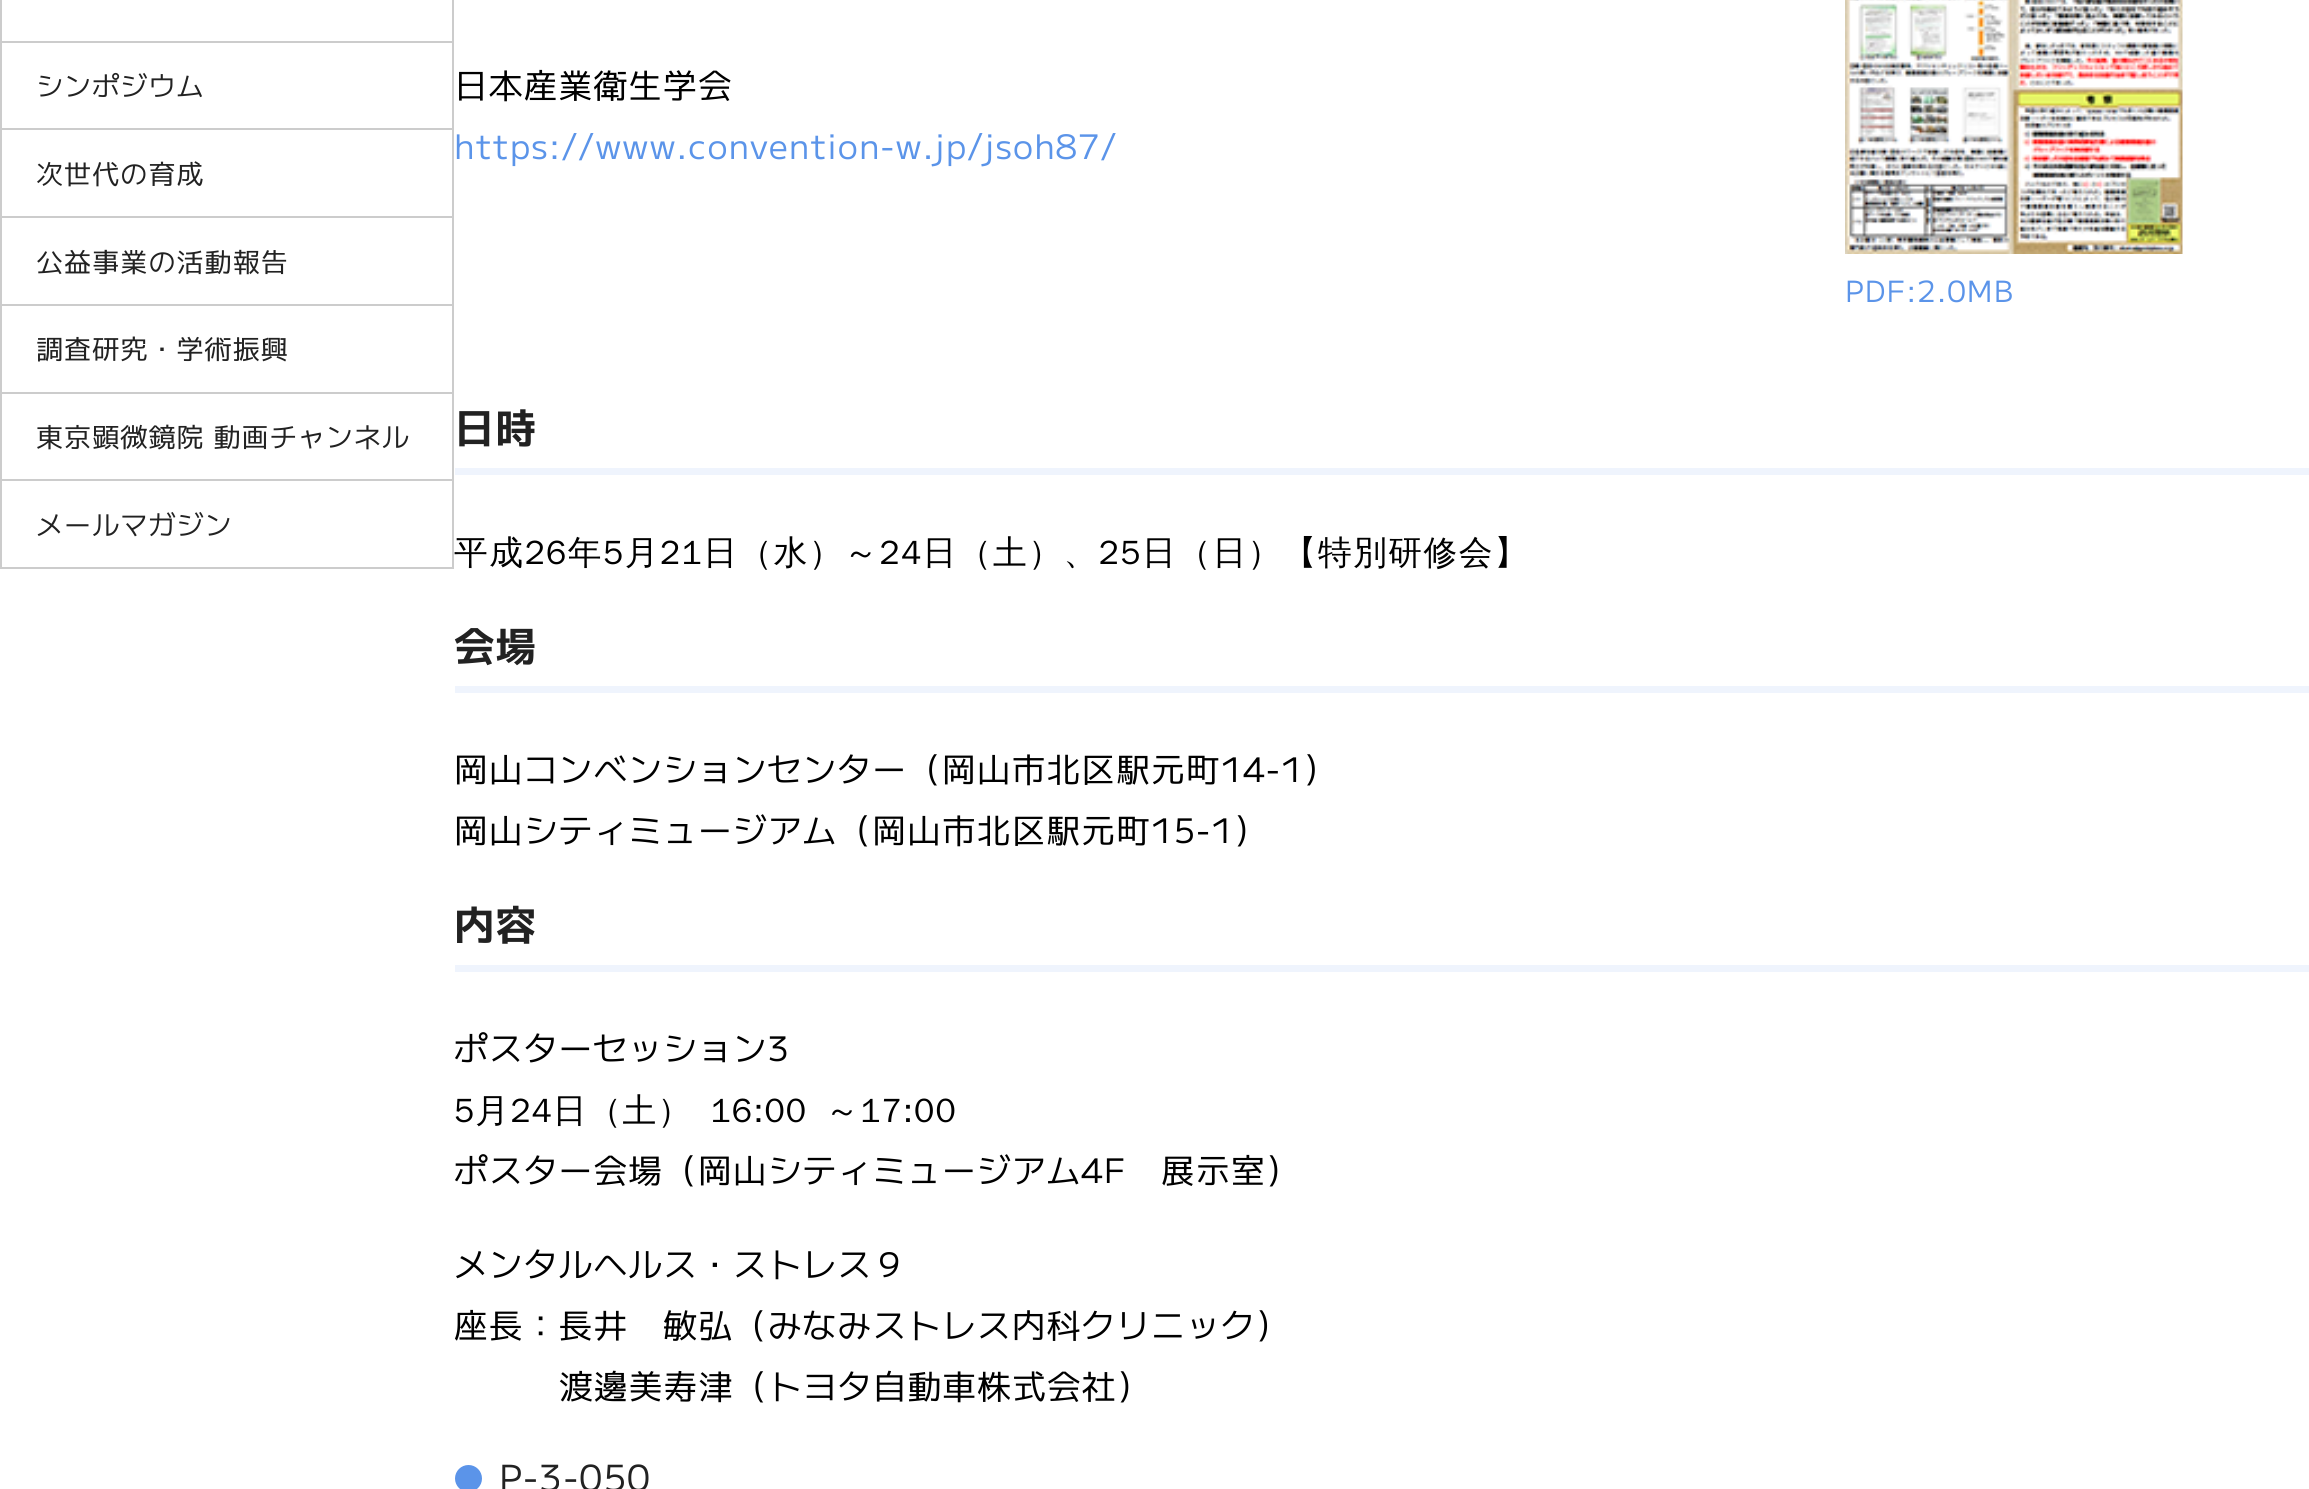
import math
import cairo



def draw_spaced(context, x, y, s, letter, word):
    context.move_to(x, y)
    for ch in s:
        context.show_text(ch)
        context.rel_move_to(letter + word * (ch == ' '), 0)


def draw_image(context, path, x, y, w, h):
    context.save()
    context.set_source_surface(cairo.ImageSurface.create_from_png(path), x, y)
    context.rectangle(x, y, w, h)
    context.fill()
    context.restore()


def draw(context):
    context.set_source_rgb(1, 1, 1)
    context.paint()
    context.set_source_rgb(204 / 255, 204 / 255, 204 / 255)
    context.rectangle(452, 0, 2, 569)
    context.fill()
    context.rectangle(0, 0, 2, 569)
    context.fill()
    context.rectangle(2, 41, 450, 2)
    context.fill()
    context.rectangle(2, 128, 450, 2)
    context.fill()
    context.rectangle(2, 216, 450, 2)
    context.fill()
    context.rectangle(2, 304, 450, 2)
    context.fill()
    context.rectangle(2, 392, 450, 2)
    context.fill()
    context.rectangle(2, 479, 450, 2)
    context.fill()
    context.rectangle(2, 567, 450, 2)
    context.fill()
    draw_image(context, "images/1.png", 1845, 0, 338, 254)
    context.set_source_rgb(239 / 255, 244 / 255, 253 / 255)
    context.rectangle(455, 468, 1854, 7)
    context.fill()
    context.rectangle(455, 686, 1854, 7)
    context.fill()
    context.rectangle(455, 965, 1854, 7)
    context.fill()
    context.set_source_rgb(91 / 255, 148 / 255, 233 / 255)
    context.arc(468.5, 1478.5, 13.5, 0, 2 * math.pi)
    context.fill()
    context.select_font_face("M PLUS 1")
    context.set_font_size(27)
    context.set_source_rgb(34 / 255, 34 / 255, 34 / 255)
    draw_spaced(context, 36, 96, "シンポジウム", 1.1, 0)
    draw_spaced(context, 36, 184, "次世代の育成", 1.1, 0)
    draw_spaced(context, 36, 272, "公益事業の活動報告", 1.1, 0)
    draw_spaced(context, 36, 359, "調査研究・学術振興", 1.1, 0)
    draw_spaced(context, 36, 447, "東京顕微鏡院 動画チャンネル", 1.1, 0)
    draw_spaced(context, 36, 535, "メールマガジン", 1.1, 0)
    context.set_font_size(33.75)
    context.set_source_rgb(0, 0, 0)
    draw_spaced(context, 454, 98, "日本産業衛生学会", 1.1, 0)
    context.set_source_rgb(91 / 255, 148 / 255, 233 / 255)
    draw_spaced(context, 454, 159, "https://www.convention-w.jp/jsoh87/", 1.1, 0)
    context.set_font_size(29.25)
    draw_spaced(context, 1845, 302, "PDF:2.0MB", 1.1, 0)
    context.select_font_face("M PLUS 1", cairo.FontSlant.NORMAL, cairo.FontWeight.BOLD)
    context.set_font_size(40.5)
    context.set_source_rgb(34 / 255, 34 / 255, 34 / 255)
    draw_spaced(context, 454, 443, "日時", 1.1, 0)
    context.select_font_face("WenQuanYi Zen Hei Medium")
    context.set_font_size(33.75)
    context.set_source_rgb(0, 0, 0)
    draw_spaced(context, 454, 564, "平成26年5月21日（水）～24日（土）、25日（日）【特別研修会】", 1.45, 0)
    context.select_font_face("M PLUS 1", cairo.FontSlant.NORMAL, cairo.FontWeight.BOLD)
    context.set_font_size(40.5)
    context.set_source_rgb(34 / 255, 34 / 255, 34 / 255)
    draw_spaced(context, 454, 661, "会場", 1.1, 0)
    context.select_font_face("M PLUS 1")
    context.set_font_size(33.75)
    context.set_source_rgb(0, 0, 0)
    draw_spaced(context, 454, 782, "岡山コンベンションセンター（岡山市北区駅元町14-1）", 1.1, 0)
    draw_spaced(context, 454, 843, "岡山シティミュージアム（岡山市北区駅元町15-1）", 1.1, 0)
    context.select_font_face("M PLUS 1", cairo.FontSlant.NORMAL, cairo.FontWeight.BOLD)
    context.set_font_size(40.5)
    context.set_source_rgb(34 / 255, 34 / 255, 34 / 255)
    draw_spaced(context, 454, 940, "内容", 1.1, 0)
    context.select_font_face("M PLUS 1")
    context.set_font_size(33.75)
    context.set_source_rgb(0, 0, 0)
    draw_spaced(context, 454, 1061, "ポスターセッション3", 1.1, 0)
    context.select_font_face("WenQuanYi Zen Hei Medium")
    draw_spaced(context, 454, 1122, "5月24日（土） 16:00 ～17:00", 1.1, 7)
    context.select_font_face("M PLUS 1")
    draw_spaced(context, 454, 1183, "ポスター会場（岡山シティミュージアム4F　展示室）", 1.1, 0)
    draw_spaced(context, 454, 1277, "メンタルヘルス・ストレス９", 1.1, 0)
    draw_spaced(context, 454, 1338, "座長：長井　敏弘（みなみストレス内科クリニック）", 1.1, 0)
    draw_spaced(context, 559, 1399, "渡邊美寿津（トヨタ自動車株式会社）", 1.1, 0)
    context.set_font_size(36)
    context.set_source_rgb(34 / 255, 34 / 255, 34 / 255)
    draw_spaced(context, 499, 1491, "P-3-050", 1.1, 0)


surface = cairo.ImageSurface(cairo.Format.RGB24, 2309, 1489)
context = cairo.Context(surface)
options = cairo.FontOptions()
options.set_hint_metrics(cairo.HintMetrics.OFF)
options.set_hint_style(cairo.HintStyle.NONE)
context.set_font_options(options)
context.set_miter_limit(4)
draw(context)
surface.write_to_png("out.png")
